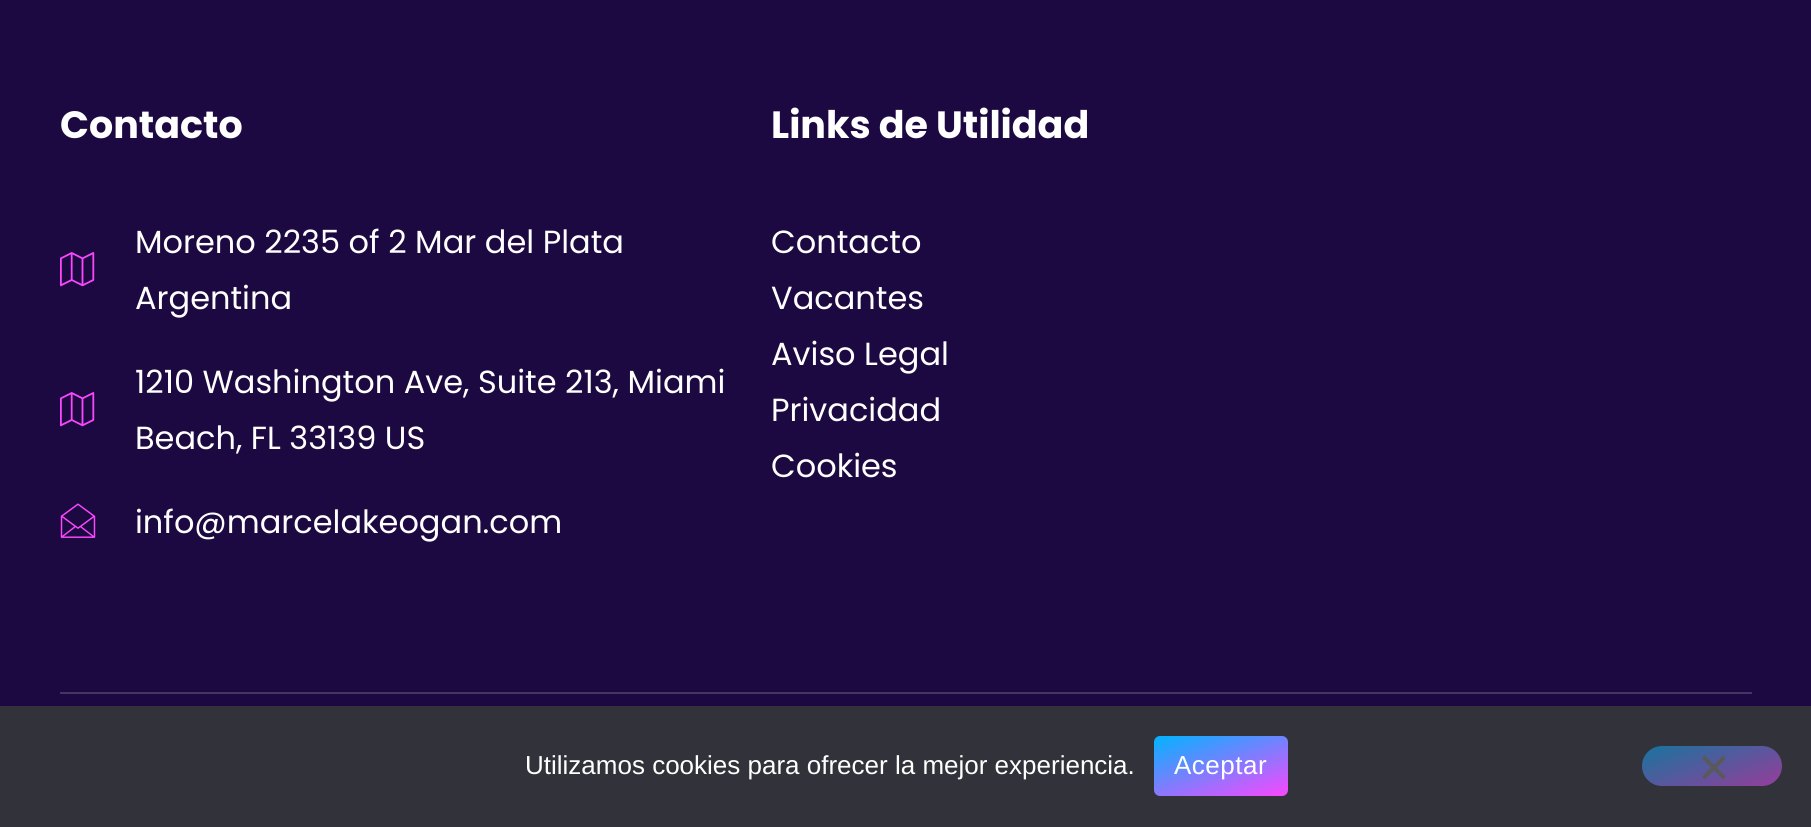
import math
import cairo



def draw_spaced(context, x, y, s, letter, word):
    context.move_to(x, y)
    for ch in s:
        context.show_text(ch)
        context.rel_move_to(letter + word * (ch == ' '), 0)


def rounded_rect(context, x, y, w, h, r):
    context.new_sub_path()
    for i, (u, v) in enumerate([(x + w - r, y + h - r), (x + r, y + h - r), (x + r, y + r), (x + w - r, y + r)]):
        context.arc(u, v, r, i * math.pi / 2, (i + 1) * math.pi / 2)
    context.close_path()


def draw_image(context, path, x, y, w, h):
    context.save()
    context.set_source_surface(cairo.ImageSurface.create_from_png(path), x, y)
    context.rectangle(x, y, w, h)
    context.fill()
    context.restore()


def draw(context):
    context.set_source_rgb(29 / 255, 9 / 255, 65 / 255)
    context.paint()
    draw_image(context, "images/1.png", 60, 252, 35, 35)
    draw_image(context, "images/1.png", 60, 392, 35, 35)
    draw_image(context, "images/2.png", 60, 503, 36, 35)
    context.set_source_rgb(70 / 255, 53 / 255, 99 / 255)
    context.rectangle(60, 692, 1692, 2)
    context.fill()
    context.set_source_rgb(50 / 255, 50 / 255, 58 / 255)
    context.rectangle(0, 706, 1811, 121)
    context.fill()
    gradient = cairo.LinearGradient(1204, 718, 1238, 814)
    gradient.add_color_stop_rgba(0, 0, 180 / 255, 1, 1)
    gradient.add_color_stop_rgba(1, 250 / 255, 71 / 255, 254 / 255, 1)
    context.set_source(gradient)
    rounded_rect(context, 1154, 736, 134, 60, 6)
    context.fill()
    gradient = cairo.LinearGradient(1697, 726, 1727, 806)
    gradient.add_color_stop_rgba(0, 25 / 255, 115 / 255, 157 / 255, 1)
    gradient.add_color_stop_rgba(1, 150 / 255, 61 / 255, 156 / 255, 1)
    context.set_source(gradient)
    rounded_rect(context, 1642, 746, 140, 40, 20)
    context.fill()
    context.set_source_rgb(89 / 255, 89 / 255, 93 / 255)
    context.new_path()
    context.move_to(1723, 755.5)
    context.line_to(1726, 758.5)
    context.line_to(1705, 779.5)
    context.line_to(1702, 776.5)
    context.close_path()
    context.fill()
    context.new_path()
    context.move_to(1702, 758.5)
    context.line_to(1705, 755.5)
    context.line_to(1726, 776.5)
    context.line_to(1723, 779.5)
    context.close_path()
    context.fill()
    context.select_font_face("Poppins", cairo.FontSlant.NORMAL, cairo.FontWeight.BOLD)
    context.set_font_size(38)
    context.set_source_rgb(1, 1, 1)
    context.move_to(60, 138)
    context.show_text("Contacto")
    context.select_font_face("Poppins")
    context.set_font_size(32)
    context.move_to(135, 253)
    context.show_text("Moreno 2235 of 2 Mar del Plata")
    context.move_to(135, 309)
    context.show_text("Argentina")
    context.move_to(135, 393)
    context.show_text("1210 Washington Ave, Suite 213, Miami")
    context.move_to(135, 449)
    context.show_text("Beach, FL 33139 US")
    context.move_to(135, 533)
    context.show_text("info@marcelakeogan.com")
    context.select_font_face("Poppins", cairo.FontSlant.NORMAL, cairo.FontWeight.BOLD)
    context.set_font_size(38)
    context.move_to(771, 138)
    context.show_text("Links de Utilidad")
    context.select_font_face("Poppins")
    context.set_font_size(32)
    context.move_to(771, 253)
    context.show_text("Contacto")
    context.move_to(771, 309)
    context.show_text("Vacantes")
    context.move_to(771, 365)
    context.show_text("Aviso Legal")
    context.move_to(771, 421)
    context.show_text("Privacidad")
    context.move_to(771, 477)
    context.show_text("Cookies")
    context.select_font_face("Liberation Sans")
    context.set_font_size(26)
    context.move_to(525, 774)
    context.show_text("Utilizamos cookies para ofrecer la mejor experiencia.")
    draw_spaced(context, 1174, 774, "Aceptar", 0.5, 0)


surface = cairo.ImageSurface(cairo.Format.RGB24, 1811, 827)
context = cairo.Context(surface)
options = cairo.FontOptions()
options.set_hint_metrics(cairo.HintMetrics.OFF)
options.set_hint_style(cairo.HintStyle.NONE)
context.set_font_options(options)
context.set_miter_limit(4)
draw(context)
surface.write_to_png("out.png")
